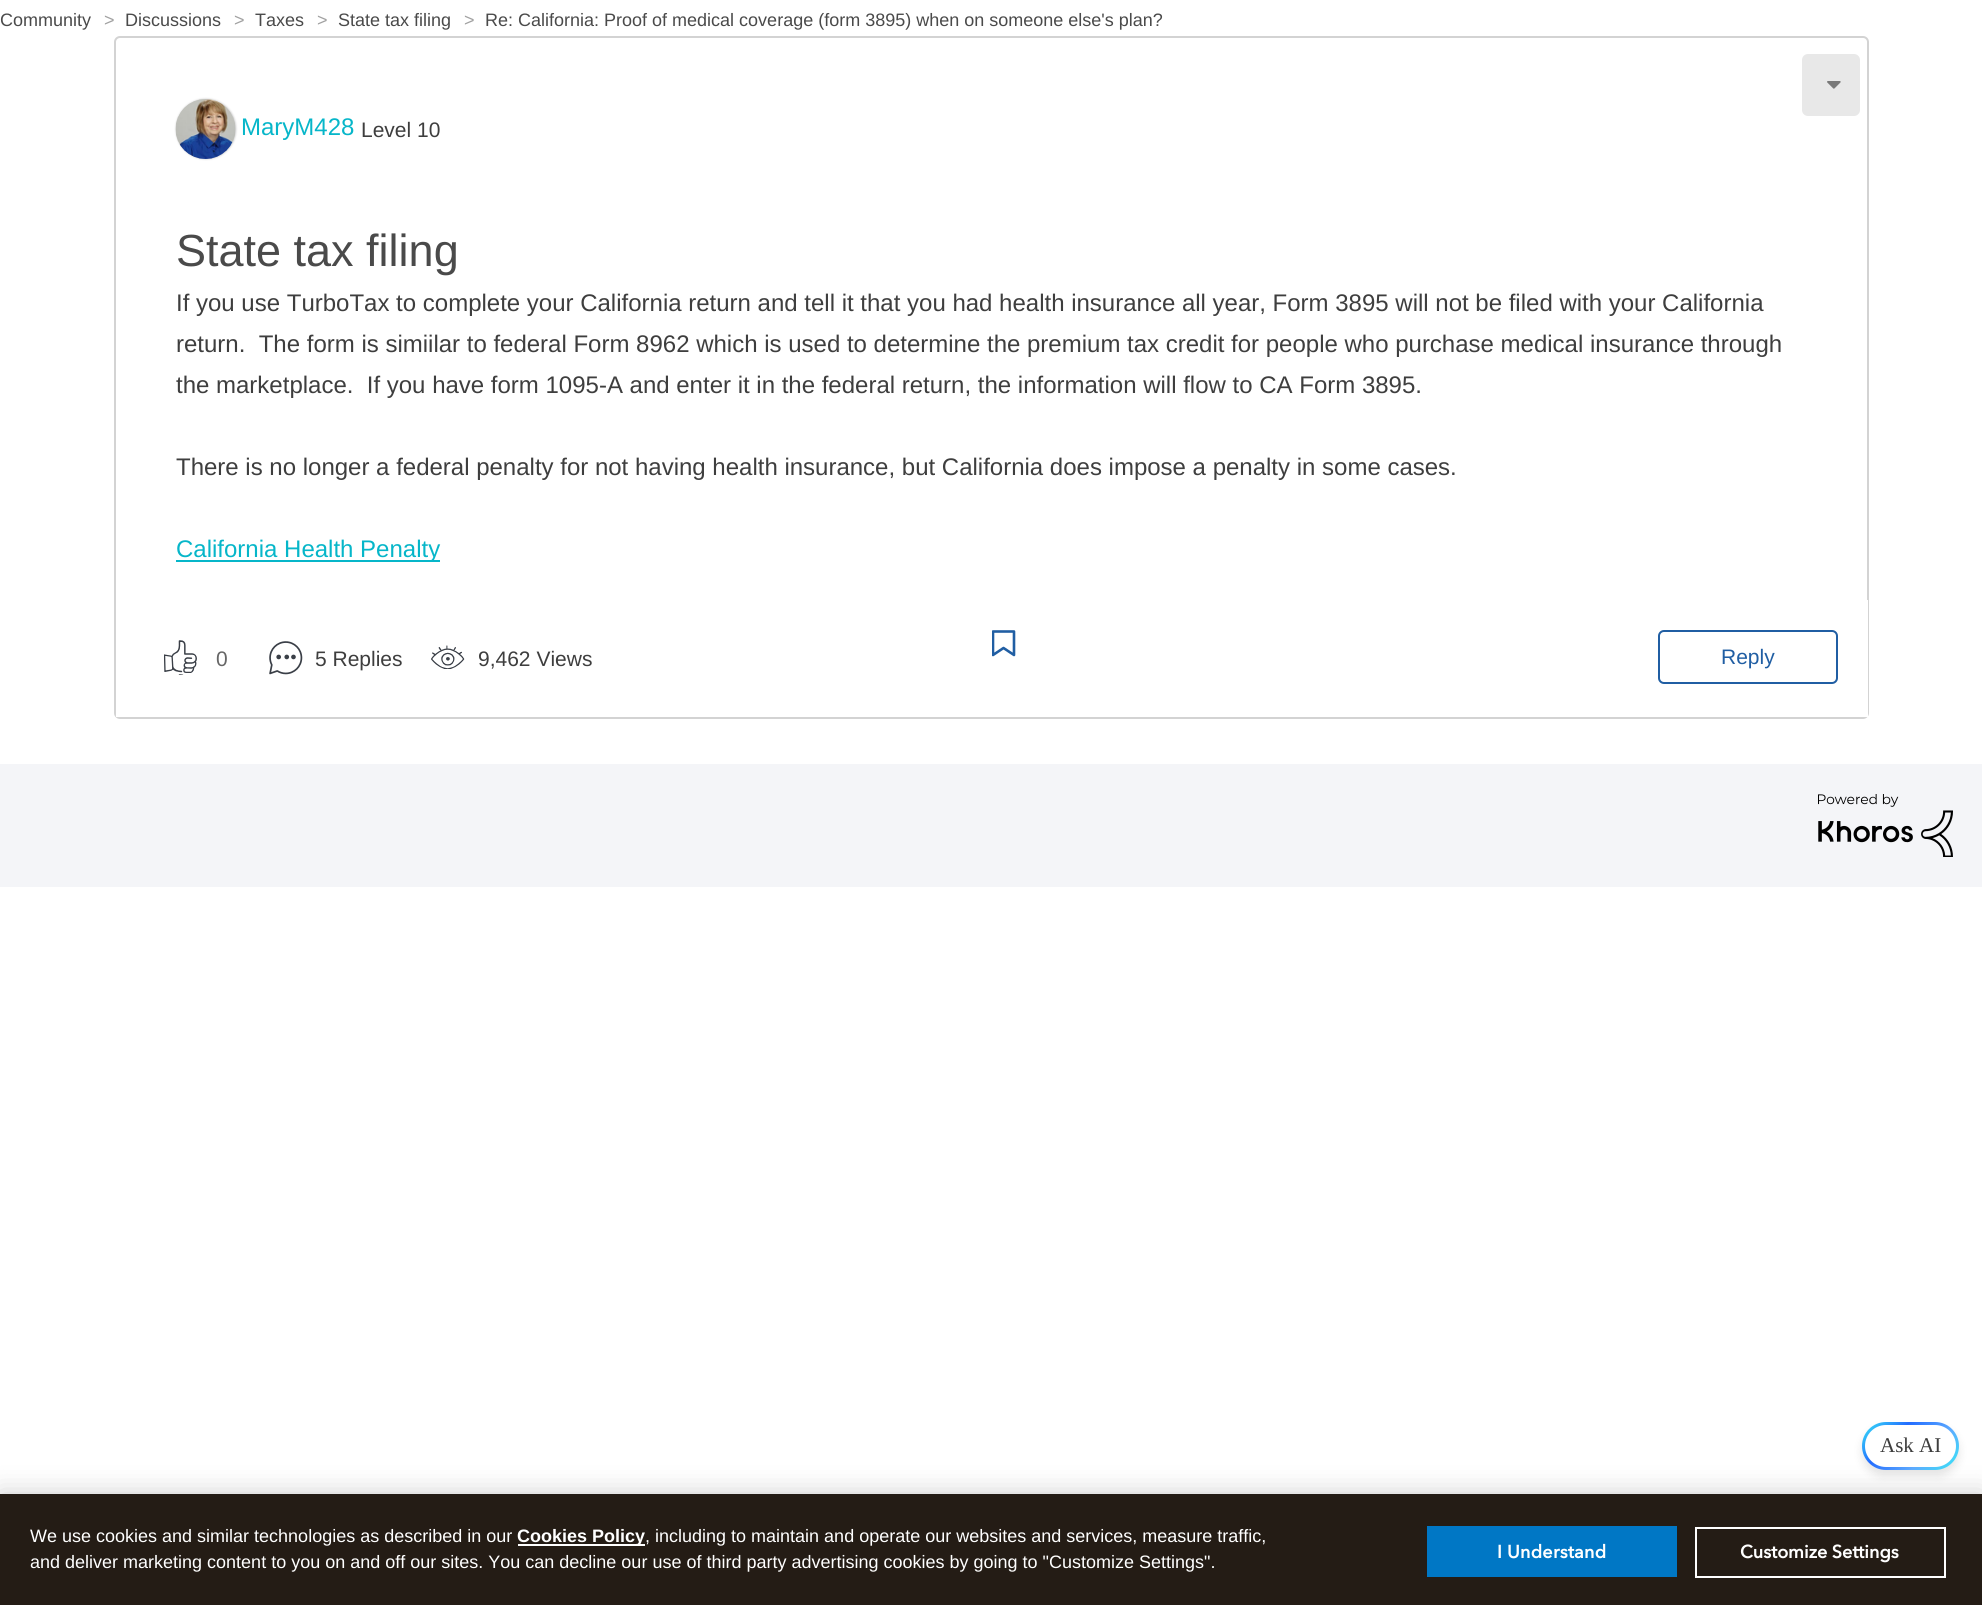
import math
import cairo



def draw_spaced(context, x, y, s, letter, word):
    context.move_to(x, y)
    for ch in s:
        context.show_text(ch)
        context.rel_move_to(letter + word * (ch == ' '), 0)


def rounded_rect(context, x, y, w, h, r):
    context.new_sub_path()
    for i, (u, v) in enumerate([(x + w - r, y + h - r), (x + r, y + h - r), (x + r, y + r), (x + w - r, y + r)]):
        context.arc(u, v, r, i * math.pi / 2, (i + 1) * math.pi / 2)
    context.close_path()


def draw_shadow(context, x, y, w, h, r, blur, alpha):
    context.push_group_with_content(cairo.Content.ALPHA)
    context.set_operator(cairo.Operator.SOURCE)
    for i in range(15, -16, -2):
        e = blur * i / 6
        if min(w, h) + 2 * e > 0:
            context.set_source_rgba(0, 0, 0, alpha * math.erfc((i - 1) / 8.5) / 2)
            rounded_rect(context, x - e, y - e, w + 2 * e, h + 2 * e, max(0, min(r + e + blur * .6, min(w, h) / 2 + e)))
            context.fill()
    context.mask(context.pop_group())


def draw_image(context, path, x, y, w, h):
    context.save()
    context.set_source_surface(cairo.ImageSurface.create_from_png(path), x, y)
    context.rectangle(x, y, w, h)
    context.fill()
    context.restore()


def draw(context):
    context.set_source_rgb(1, 1, 1)
    context.paint()
    rounded_rect(context, 115, 37, 1753, 681, 5)
    context.set_source_rgb(211 / 255, 211 / 255, 211 / 255)
    context.stroke()
    context.set_source_rgb(232 / 255, 232 / 255, 232 / 255)
    rounded_rect(context, 1803, 55, 56, 60, 5)
    context.fill_preserve()
    context.stroke()
    draw_image(context, "images/1.png", 1827, 81, 14, 8)
    context.set_source_rgb(196 / 255, 196 / 255, 196 / 255)
    draw_shadow(context, 176, 99, 60, 60, 30, 1, 1)
    draw_image(context, "images/2.png", 175, 99, 61, 60)
    context.set_source_rgb(6 / 255, 182 / 255, 201 / 255)
    context.rectangle(176, 560, 264, 2)
    context.fill()
    context.set_source_rgb(1, 1, 1)
    context.rectangle(116, 600, 1752, 117)
    context.fill()
    draw_image(context, "images/3.png", 164, 640, 33, 35)
    draw_image(context, "images/4.png", 269, 641, 34, 34)
    draw_image(context, "images/5.png", 431, 645, 34, 24)
    context.save()
    context.rectangle(992, 630, 24, 27)
    context.clip()
    context.new_path()
    context.move_to(993, 631.5)
    context.line_to(1014, 631.5)
    context.line_to(1014, 655)
    context.line_to(1003.5, 648)
    context.line_to(993, 655)
    context.close_path()
    context.set_source_rgb(32 / 255, 94 / 255, 163 / 255)
    context.set_line_width(2.6)
    context.set_line_cap(cairo.LineCap.ROUND)
    context.set_line_join(cairo.LineJoin.ROUND)
    context.stroke()
    context.restore()
    rounded_rect(context, 1659, 631, 178, 52, 5)
    context.set_source_rgb(32 / 255, 94 / 255, 163 / 255)
    context.stroke()
    context.set_source_rgb(244 / 255, 245 / 255, 248 / 255)
    context.rectangle(0, 764, 1982, 123)
    context.fill()
    draw_image(context, "images/6.png", 1818, 794, 135, 63)
    context.set_source_rgb(0, 0, 0)
    draw_shadow(context, 1862, 1428, 97, 48, 24, 4.5, 0.1)
    gradient = cairo.LinearGradient(1947, 1482, 1874, 1410)
    gradient.add_color_stop_rgba(0, 56 / 255, 232 / 255, 246 / 255, 1)
    gradient.add_color_stop_rgba(0.33, 93 / 255, 171 / 255, 1, 1)
    gradient.add_color_stop_rgba(0.67, 35 / 255, 108 / 255, 1, 1)
    gradient.add_color_stop_rgba(1, 56 / 255, 232 / 255, 246 / 255, 1)
    context.set_source(gradient)
    rounded_rect(context, 1862, 1422, 97, 48, 24)
    context.fill()
    context.set_source_rgb(1, 1, 1)
    rounded_rect(context, 1865, 1425, 91, 42, 21)
    context.fill()
    context.set_source_rgb(0, 0, 0)
    draw_shadow(context, 0, 1494, 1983, 111, 0, 13.5, 0.2)
    context.set_source_rgb(36 / 255, 28 / 255, 21 / 255)
    context.rectangle(0, 1494, 1982, 111)
    context.fill()
    context.set_source_rgb(1, 1, 1)
    context.rectangle(518, 1544, 127, 2)
    context.fill()
    context.rectangle(1696, 1528, 249, 49)
    context.stroke()
    context.set_source_rgb(0, 119 / 255, 197 / 255)
    context.rectangle(1427, 1526, 250, 51)
    context.fill()
    context.select_font_face("Liberation Sans")
    context.set_font_size(18)
    context.set_source_rgb(74 / 255, 74 / 255, 74 / 255)
    context.move_to(0, 26)
    context.show_text("Community")
    context.set_source_rgb(161 / 255, 161 / 255, 161 / 255)
    context.move_to(104, 26)
    context.show_text(">")
    context.set_source_rgb(74 / 255, 74 / 255, 74 / 255)
    context.move_to(125, 26)
    context.show_text("Discussions")
    context.set_source_rgb(161 / 255, 161 / 255, 161 / 255)
    context.move_to(234, 26)
    context.show_text(">")
    context.set_source_rgb(74 / 255, 74 / 255, 74 / 255)
    context.move_to(255, 26)
    context.show_text("Taxes")
    context.set_source_rgb(161 / 255, 161 / 255, 161 / 255)
    context.move_to(317, 26)
    context.show_text(">")
    context.set_source_rgb(74 / 255, 74 / 255, 74 / 255)
    context.move_to(338, 26)
    context.show_text("State tax filing")
    context.set_source_rgb(161 / 255, 161 / 255, 161 / 255)
    context.move_to(464, 26)
    context.show_text(">")
    context.set_source_rgb(74 / 255, 74 / 255, 74 / 255)
    context.move_to(485, 26)
    context.show_text("Re: California: Proof of medical coverage (form 3895) when on someone else's plan?")
    context.set_font_size(24)
    context.set_source_rgb(6 / 255, 182 / 255, 201 / 255)
    context.move_to(241, 135)
    context.show_text("MaryM428")
    context.set_font_size(21)
    context.set_source_rgb(62 / 255, 62 / 255, 62 / 255)
    context.move_to(361, 137)
    context.show_text("Level 10")
    context.set_font_size(45)
    context.set_source_rgb(74 / 255, 74 / 255, 74 / 255)
    context.move_to(176, 266)
    context.show_text("State tax filing")
    context.set_font_size(24)
    context.set_source_rgb(62 / 255, 62 / 255, 62 / 255)
    context.move_to(176, 311)
    context.show_text("If you use TurboTax to complete your California return and tell it that you had health insurance all year, Form 3895 will not be filed with your California")
    context.move_to(176, 352)
    context.show_text("return.  The form is simiilar to federal Form 8962 which is used to determine the premium tax credit for people who purchase medical insurance through")
    context.move_to(176, 393)
    context.show_text("the marketplace.  If you have form 1095-A and enter it in the federal return, the information will flow to CA Form 3895.")
    context.move_to(176, 475)
    context.show_text("There is no longer a federal penalty for not having health insurance, but California does impose a penalty in some cases.")
    context.set_source_rgb(6 / 255, 182 / 255, 201 / 255)
    context.move_to(176, 557)
    context.show_text("California Health Penalty")
    context.set_font_size(21)
    context.set_source_rgb(102 / 255, 102 / 255, 102 / 255)
    context.move_to(216, 666)
    context.show_text("0")
    context.set_source_rgb(62 / 255, 62 / 255, 62 / 255)
    context.move_to(315, 666)
    context.show_text("5 Replies")
    context.move_to(478, 666)
    context.show_text("9,462 Views")
    context.set_source_rgb(32 / 255, 94 / 255, 163 / 255)
    context.move_to(1721, 664)
    context.show_text("Reply")
    context.select_font_face("Liberation Serif")
    context.set_source_rgb(62 / 255, 62 / 255, 62 / 255)
    context.move_to(1880, 1452)
    context.show_text("Ask AI")
    context.select_font_face("Liberation Sans")
    context.set_font_size(18)
    context.set_source_rgb(1, 1, 1)
    context.move_to(30, 1542)
    context.show_text("We use cookies and similar technologies as described in our")
    context.select_font_face("Liberation Sans", cairo.FontSlant.NORMAL, cairo.FontWeight.BOLD)
    context.move_to(517, 1542)
    context.show_text("Cookies Policy")
    context.select_font_face("Liberation Sans")
    context.move_to(645, 1542)
    context.show_text(", including to maintain and operate our websites and services, measure traffic,")
    context.move_to(30, 1568)
    context.show_text("and deliver marketing content to you on and off our sites. You can decline our use of third party advertising cookies by going to \"Customize Settings\".")
    context.select_font_face("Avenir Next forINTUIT", cairo.FontSlant.NORMAL, cairo.FontWeight.BOLD)
    context.move_to(1740, 1558)
    context.show_text("Customize Settings")
    draw_spaced(context, 1497, 1558, "I Understand", 0.25, 0)


surface = cairo.ImageSurface(cairo.Format.RGB24, 1982, 1605)
context = cairo.Context(surface)
options = cairo.FontOptions()
options.set_hint_metrics(cairo.HintMetrics.OFF)
options.set_hint_style(cairo.HintStyle.NONE)
context.set_font_options(options)
context.set_miter_limit(4)
draw(context)
surface.write_to_png("out.png")
